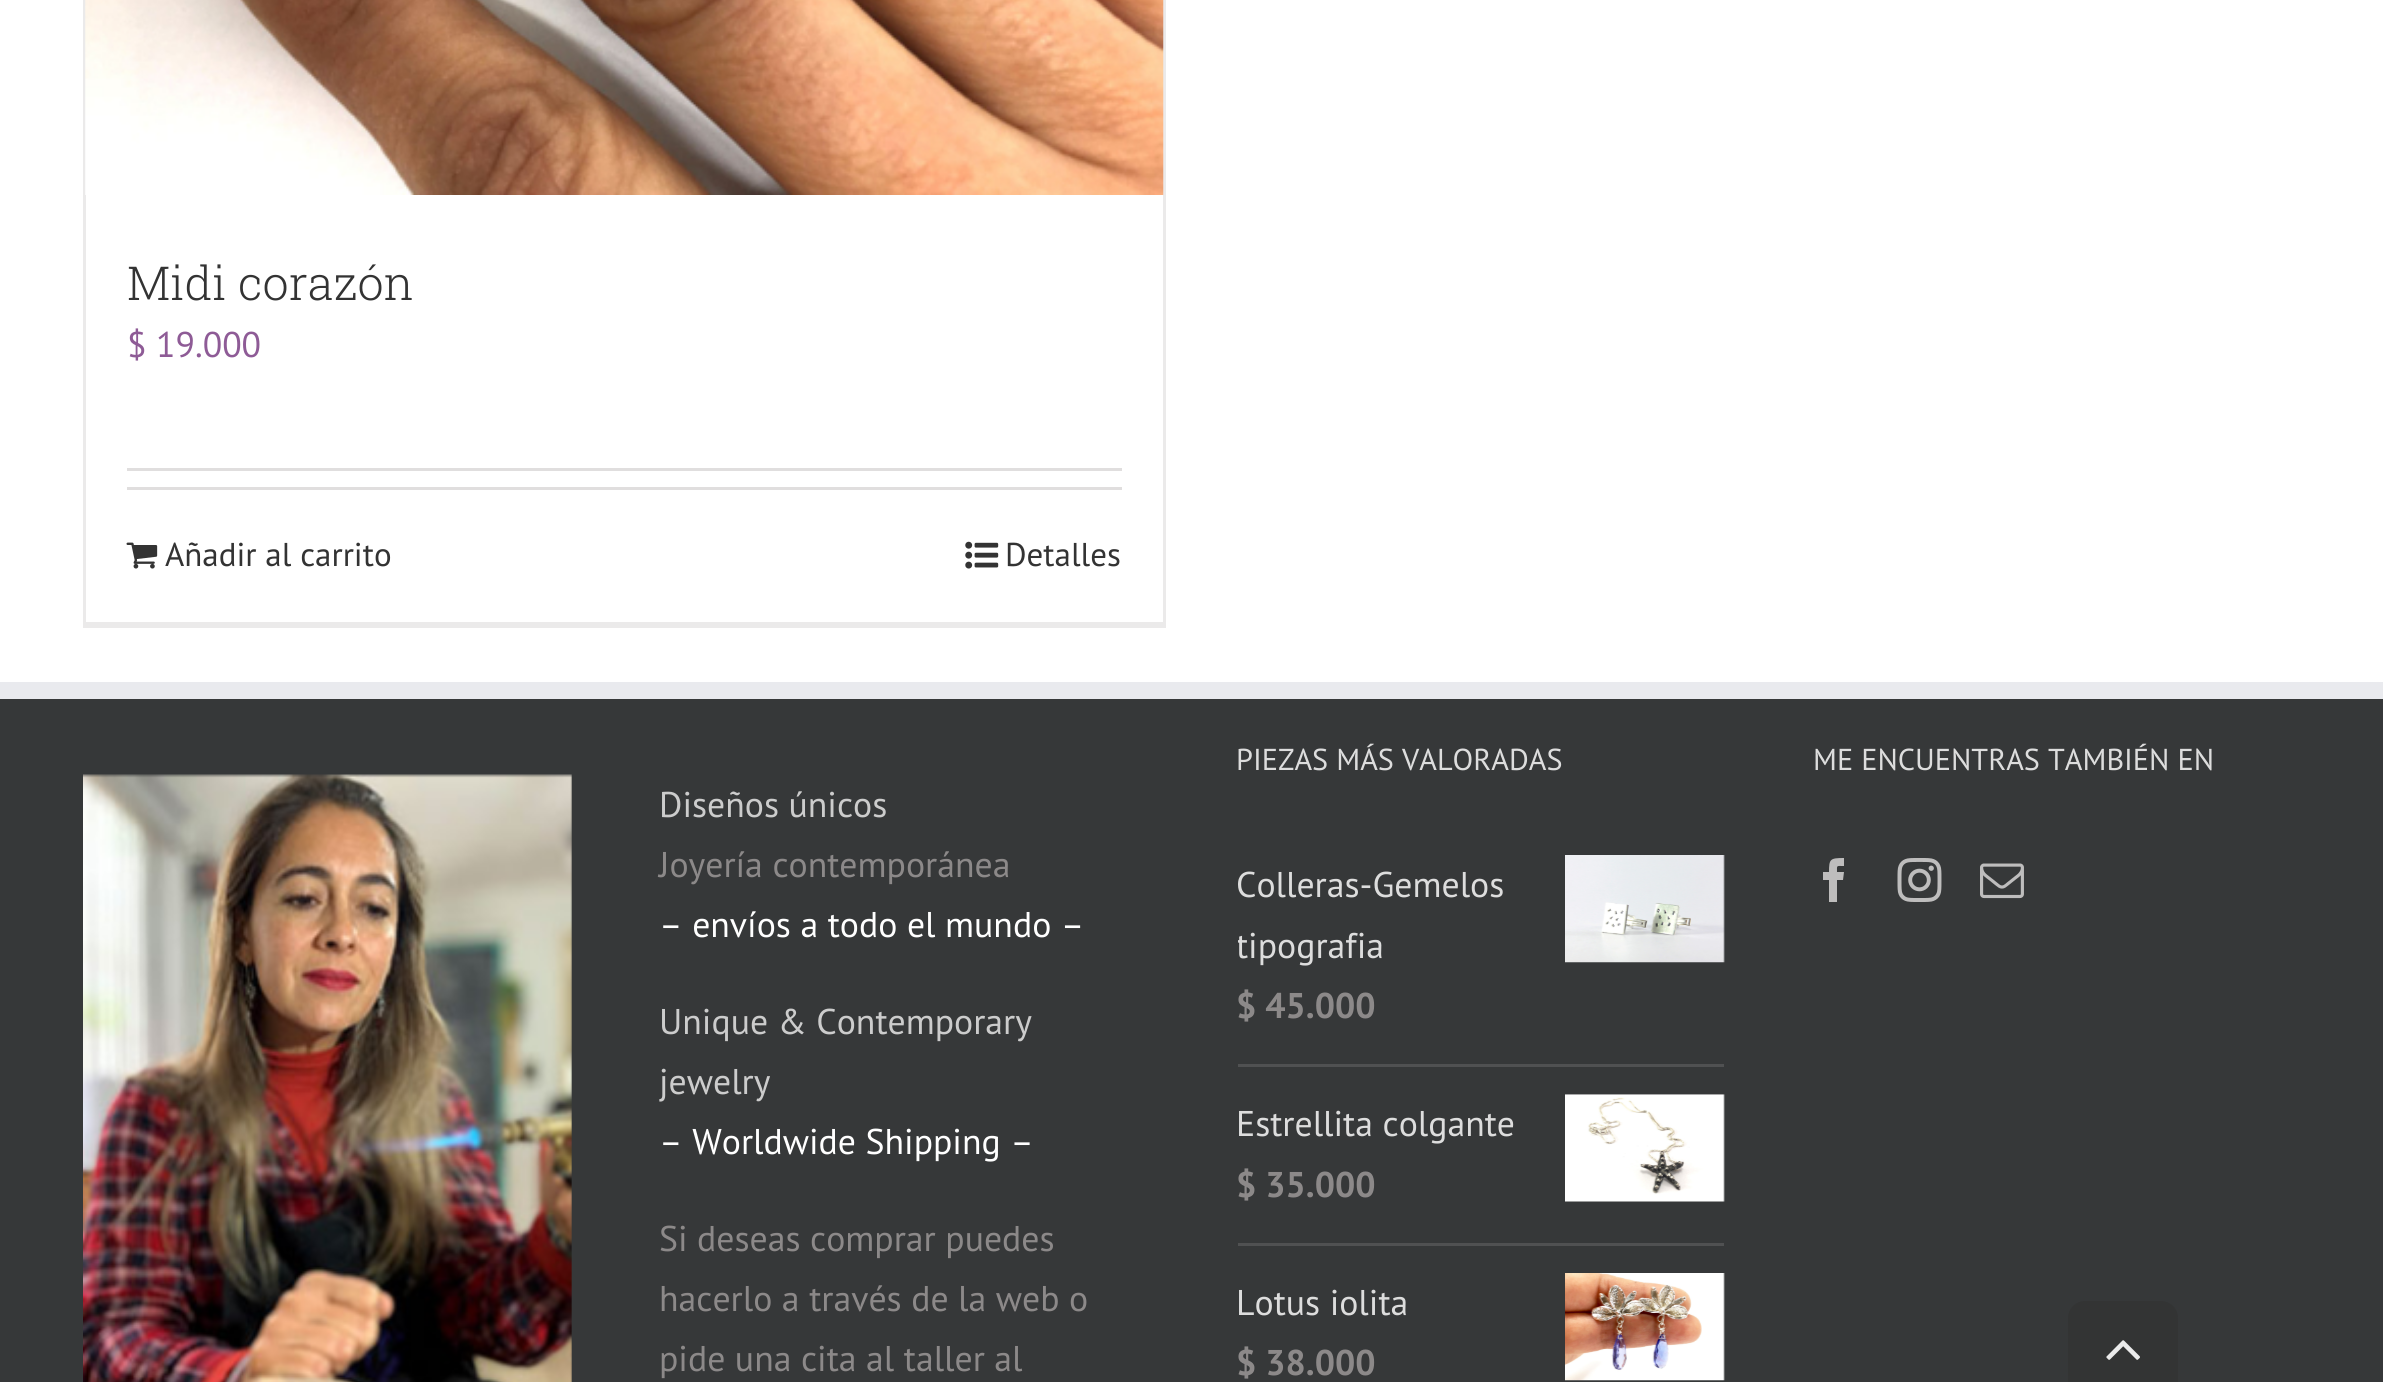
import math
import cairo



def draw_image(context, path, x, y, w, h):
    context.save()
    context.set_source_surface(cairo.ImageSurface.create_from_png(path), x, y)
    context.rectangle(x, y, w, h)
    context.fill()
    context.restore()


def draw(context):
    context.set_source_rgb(1, 1, 1)
    context.paint()
    context.set_source_rgb(235 / 255, 234 / 255, 234 / 255)
    context.rectangle(1163, 0, 3, 627)
    context.fill()
    context.rectangle(83, 622, 1083, 6)
    context.fill()
    context.rectangle(83, 0, 3, 627)
    context.fill()
    draw_image(context, "images/1.png", 85, 0, 1079, 195)
    context.set_source_rgb(224 / 255, 222 / 255, 222 / 255)
    context.rectangle(127, 468, 995, 3)
    context.fill()
    context.rectangle(127, 487, 995, 3)
    context.fill()
    draw_image(context, "images/2.png", 126, 542, 32, 27)
    draw_image(context, "images/3.png", 965, 541, 34, 28)
    context.set_source_rgb(54 / 255, 56 / 255, 57 / 255)
    context.rectangle(0, 699, 2383, 683)
    context.fill()
    context.set_source_rgb(233 / 255, 234 / 255, 238 / 255)
    context.rectangle(0, 682, 2383, 17)
    context.fill()
    context.set_source_rgb(80 / 255, 81 / 255, 82 / 255)
    context.rectangle(1238, 1064, 486, 3)
    context.fill()
    draw_image(context, "images/4.png", 1565, 855, 160, 108)
    context.rectangle(1238, 1243, 486, 3)
    context.fill()
    draw_image(context, "images/5.png", 1565, 1094, 160, 108)
    draw_image(context, "images/6.png", 1565, 1273, 160, 108)
    context.set_source_rgb(190 / 255, 189 / 255, 189 / 255)
    context.new_path()
    context.move_to(1837, 902)
    context.line_to(1829, 902)
    context.line_to(1829, 880)
    context.line_to(1823, 880)
    context.line_to(1823, 872)
    context.line_to(1829, 872)
    context.curve_to(1829, 859, 1830, 858, 1844, 858)
    context.line_to(1844, 866)
    context.curve_to(1836, 866, 1837, 865, 1837, 872)
    context.line_to(1844, 872)
    context.line_to(1843, 880)
    context.line_to(1837, 880)
    context.close_path()
    context.fill()
    draw_image(context, "images/7.png", 1897, 858, 45, 44)
    draw_image(context, "images/8.png", 1980, 863, 44, 36)
    draw_image(context, "images/9.png", 83, 774, 489, 608)
    context.set_source_rgb(51 / 255, 52 / 255, 52 / 255)
    context.new_path()
    context.move_to(2085, 1301)
    context.line_to(2161, 1301)
    context.curve_to(2170.5, 1301, 2178, 1308.5, 2178, 1318)
    context.line_to(2178, 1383)
    context.line_to(2068, 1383)
    context.line_to(2068, 1318)
    context.curve_to(2068, 1308.5, 2075.5, 1301, 2085, 1301)
    context.close_path()
    context.fill()
    draw_image(context, "images/10.png", 2106, 1340, 34, 20)
    context.select_font_face("Roboto Slab Light")
    context.set_font_size(46.75)
    context.set_source_rgb(51 / 255, 51 / 255, 51 / 255)
    context.move_to(127, 300)
    context.show_text("Midi corazón")
    context.select_font_face("PT Sans")
    context.set_font_size(35.75)
    context.set_source_rgb(142 / 255, 91 / 255, 150 / 255)
    context.move_to(127, 357)
    context.show_text("$ 19.000")
    context.set_font_size(33)
    context.set_source_rgb(51 / 255, 51 / 255, 51 / 255)
    context.move_to(165, 566)
    context.show_text("Añadir al carrito")
    context.move_to(1005, 566)
    context.show_text("Detalles")
    context.set_font_size(30.25)
    context.set_source_rgb(221 / 255, 221 / 255, 221 / 255)
    context.move_to(1236, 770)
    context.show_text("PIEZAS MÁS VALORADAS")
    context.set_font_size(35.75)
    context.move_to(1236, 897)
    context.show_text("Colleras-Gemelos")
    context.save()
    context.rectangle(1238, 855, 486, 209)
    context.clip()
    context.move_to(1236, 958)
    context.show_text("tipografia")
    context.restore()
    context.select_font_face("PT Sans", cairo.FontSlant.NORMAL, cairo.FontWeight.BOLD)
    context.set_source_rgb(140 / 255, 137 / 255, 137 / 255)
    context.move_to(1236, 1018)
    context.show_text("$ 45.000")
    context.select_font_face("PT Sans")
    context.set_source_rgb(221 / 255, 221 / 255, 221 / 255)
    context.move_to(1236, 1136)
    context.show_text("Estrellita colgante")
    context.select_font_face("PT Sans", cairo.FontSlant.NORMAL, cairo.FontWeight.BOLD)
    context.set_source_rgb(140 / 255, 137 / 255, 137 / 255)
    context.move_to(1236, 1197)
    context.show_text("$ 35.000")
    context.select_font_face("PT Sans")
    context.set_source_rgb(221 / 255, 221 / 255, 221 / 255)
    context.move_to(1236, 1315)
    context.show_text("Lotus iolita")
    context.select_font_face("PT Sans", cairo.FontSlant.NORMAL, cairo.FontWeight.BOLD)
    context.set_source_rgb(140 / 255, 137 / 255, 137 / 255)
    context.move_to(1236, 1375)
    context.show_text("$ 38.000")
    context.select_font_face("PT Sans")
    context.set_font_size(30.25)
    context.set_source_rgb(221 / 255, 221 / 255, 221 / 255)
    context.move_to(1813, 770)
    context.show_text("ME ENCUENTRAS TAMBIÉN EN")
    context.set_font_size(35.75)
    context.set_source_rgb(204 / 255, 204 / 255, 204 / 255)
    context.move_to(659, 817)
    context.show_text("Diseños únicos")
    context.set_source_rgb(140 / 255, 137 / 255, 137 / 255)
    context.move_to(659, 877)
    context.show_text("Joyería contemporánea")
    context.set_source_rgb(1, 1, 1)
    context.move_to(659, 937)
    context.show_text("– envíos a todo el mundo –")
    context.set_source_rgb(204 / 255, 204 / 255, 204 / 255)
    context.move_to(659, 1034)
    context.show_text("Unique & Contemporary")
    context.move_to(659, 1094)
    context.show_text("jewelry")
    context.set_source_rgb(1, 1, 1)
    context.move_to(659, 1154)
    context.show_text("– Worldwide Shipping –")
    context.set_source_rgb(140 / 255, 137 / 255, 137 / 255)
    context.move_to(659, 1251)
    context.show_text("Si deseas comprar puedes")
    context.move_to(659, 1311)
    context.show_text("hacerlo a través de la web o")
    context.move_to(659, 1371)
    context.show_text("pide una cita al taller al")


surface = cairo.ImageSurface(cairo.Format.RGB24, 2383, 1382)
context = cairo.Context(surface)
options = cairo.FontOptions()
options.set_hint_metrics(cairo.HintMetrics.OFF)
options.set_hint_style(cairo.HintStyle.NONE)
context.set_font_options(options)
context.set_miter_limit(4)
draw(context)
surface.write_to_png("out.png")
